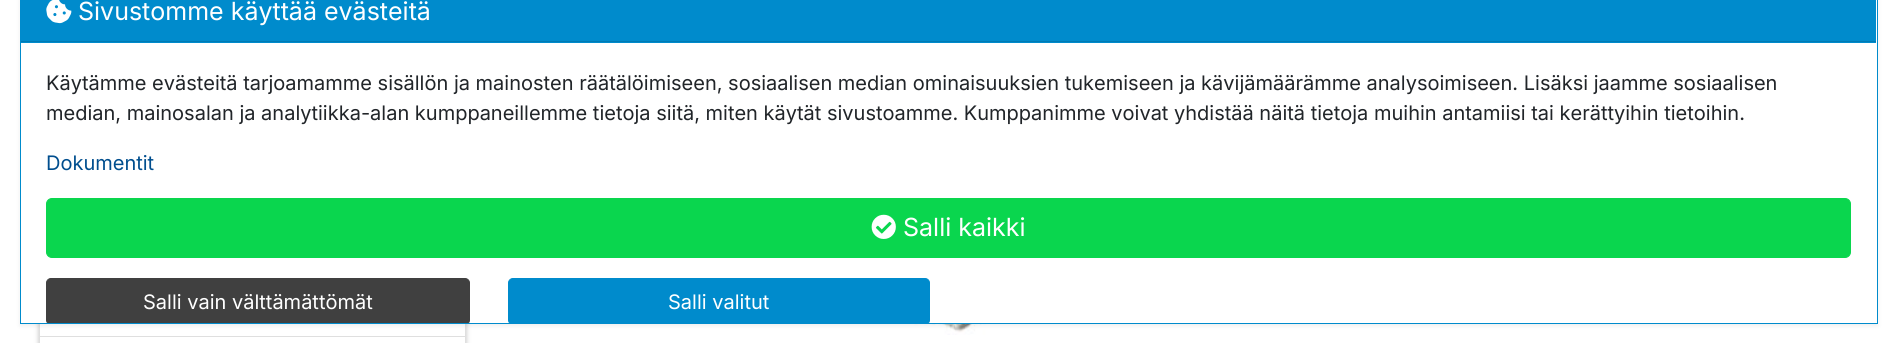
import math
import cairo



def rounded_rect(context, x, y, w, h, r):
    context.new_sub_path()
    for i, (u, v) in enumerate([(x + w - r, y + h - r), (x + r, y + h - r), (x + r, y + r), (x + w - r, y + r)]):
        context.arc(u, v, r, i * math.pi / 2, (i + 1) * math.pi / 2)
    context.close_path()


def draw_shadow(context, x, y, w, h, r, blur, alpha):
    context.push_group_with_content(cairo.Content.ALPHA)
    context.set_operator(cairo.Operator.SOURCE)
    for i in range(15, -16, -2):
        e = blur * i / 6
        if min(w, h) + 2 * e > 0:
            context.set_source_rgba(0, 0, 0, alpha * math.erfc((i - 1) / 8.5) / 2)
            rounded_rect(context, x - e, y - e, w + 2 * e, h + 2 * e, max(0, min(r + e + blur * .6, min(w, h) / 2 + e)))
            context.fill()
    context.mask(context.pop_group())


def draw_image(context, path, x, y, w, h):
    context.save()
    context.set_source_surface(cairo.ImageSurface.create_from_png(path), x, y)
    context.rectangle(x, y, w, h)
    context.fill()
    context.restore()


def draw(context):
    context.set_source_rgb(1, 1, 1)
    context.paint()
    context.save()
    context.set_fill_rule(cairo.FillRule.EVEN_ODD)
    context.new_path()
    context.move_to(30, 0)
    context.line_to(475, 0)
    context.line_to(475, 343)
    context.line_to(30, 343)
    context.close_path()
    context.move_to(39, -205)
    context.line_to(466, -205)
    context.line_to(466, 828)
    context.line_to(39, 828)
    context.close_path()
    context.clip()
    context.set_source_rgb(191 / 255, 191 / 255, 191 / 255)
    draw_shadow(context, 39, -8, 427, 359, 0, 2.5, 1)
    context.restore()
    context.set_source_rgb(223 / 255, 223 / 255, 223 / 255)
    context.new_path()
    context.move_to(466, -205)
    context.line_to(466, 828)
    context.line_to(465, 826)
    context.line_to(465, -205)
    context.close_path()
    context.fill()
    context.new_path()
    context.move_to(39, 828)
    context.line_to(39, -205)
    context.line_to(40, -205)
    context.line_to(40, 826)
    context.close_path()
    context.fill()
    context.rectangle(40, 336, 425, 1)
    context.fill()
    draw_image(context, "images/1.png", 525, 324, 625, 11)
    context.set_source_rgb(0, 0, 0)
    draw_shadow(context, 20, -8, 1858, 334, 0, 2.5, 0.07)
    context.set_source_rgb(1, 1, 1)
    context.rectangle(20.5, -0.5, 1857, 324)
    context.fill_preserve()
    context.set_source_rgb(0, 139 / 255, 204 / 255)
    context.set_line_width(1)
    context.stroke()
    context.rectangle(21, 0, 1855, 43)
    context.fill()
    context.set_source_rgb(0, 122 / 255, 179 / 255)
    context.rectangle(21, 41, 1855, 1)
    context.fill()
    draw_image(context, "images/2.png", 46, 0, 26, 24)
    context.set_source_rgb(10 / 255, 214 / 255, 78 / 255)
    rounded_rect(context, 46.5, 198.5, 1804, 59, 5.5)
    context.fill_preserve()
    context.stroke()
    draw_image(context, "images/3.png", 871, 214, 25, 25)
    context.save()
    context.rectangle(21, 0, 1855, 323)
    context.clip()
    context.set_source_rgb(64 / 255, 64 / 255, 64 / 255)
    rounded_rect(context, 46.5, 278.5, 423, 46, 4.5)
    context.fill_preserve()
    context.stroke()
    context.set_source_rgb(0, 139 / 255, 204 / 255)
    rounded_rect(context, 508.5, 278.5, 421, 46, 4.5)
    context.fill_preserve()
    context.stroke()
    context.restore()
    context.select_font_face("Inter")
    context.set_font_size(25)
    context.set_source_rgb(1, 1, 1)
    context.move_to(78, 20)
    context.show_text("Sivustomme käyttää evästeitä")
    context.set_font_size(20)
    context.set_source_rgb(33 / 255, 37 / 255, 41 / 255)
    context.move_to(46, 90)
    context.show_text("Käytämme evästeitä tarjoamamme sisällön ja mainosten räätälöimiseen, sosiaalisen median ominaisuuksien tukemiseen ja kävijämäärämme analysoimiseen. Lisäksi jaamme sosiaalisen")
    context.move_to(46, 120)
    context.show_text("median, mainosalan ja analytiikka-alan kumppaneillemme tietoja siitä, miten käytät sivustoamme. Kumppanimme voivat yhdistää näitä tietoja muihin antamiisi tai kerättyihin tietoihin.")
    context.set_source_rgb(0, 78 / 255, 142 / 255)
    context.move_to(46, 170)
    context.show_text("Dokumentit")
    context.set_font_size(25)
    context.set_source_rgb(1, 1, 1)
    context.move_to(903, 236)
    context.show_text("Salli kaikki")
    context.set_font_size(20)
    context.move_to(143, 309)
    context.show_text("Salli vain välttämättömät")
    context.move_to(668, 309)
    context.show_text("Salli valitut")


surface = cairo.ImageSurface(cairo.Format.RGB24, 1897, 343)
context = cairo.Context(surface)
options = cairo.FontOptions()
options.set_hint_metrics(cairo.HintMetrics.OFF)
options.set_hint_style(cairo.HintStyle.NONE)
context.set_font_options(options)
context.set_miter_limit(4)
draw(context)
surface.write_to_png("out.png")
